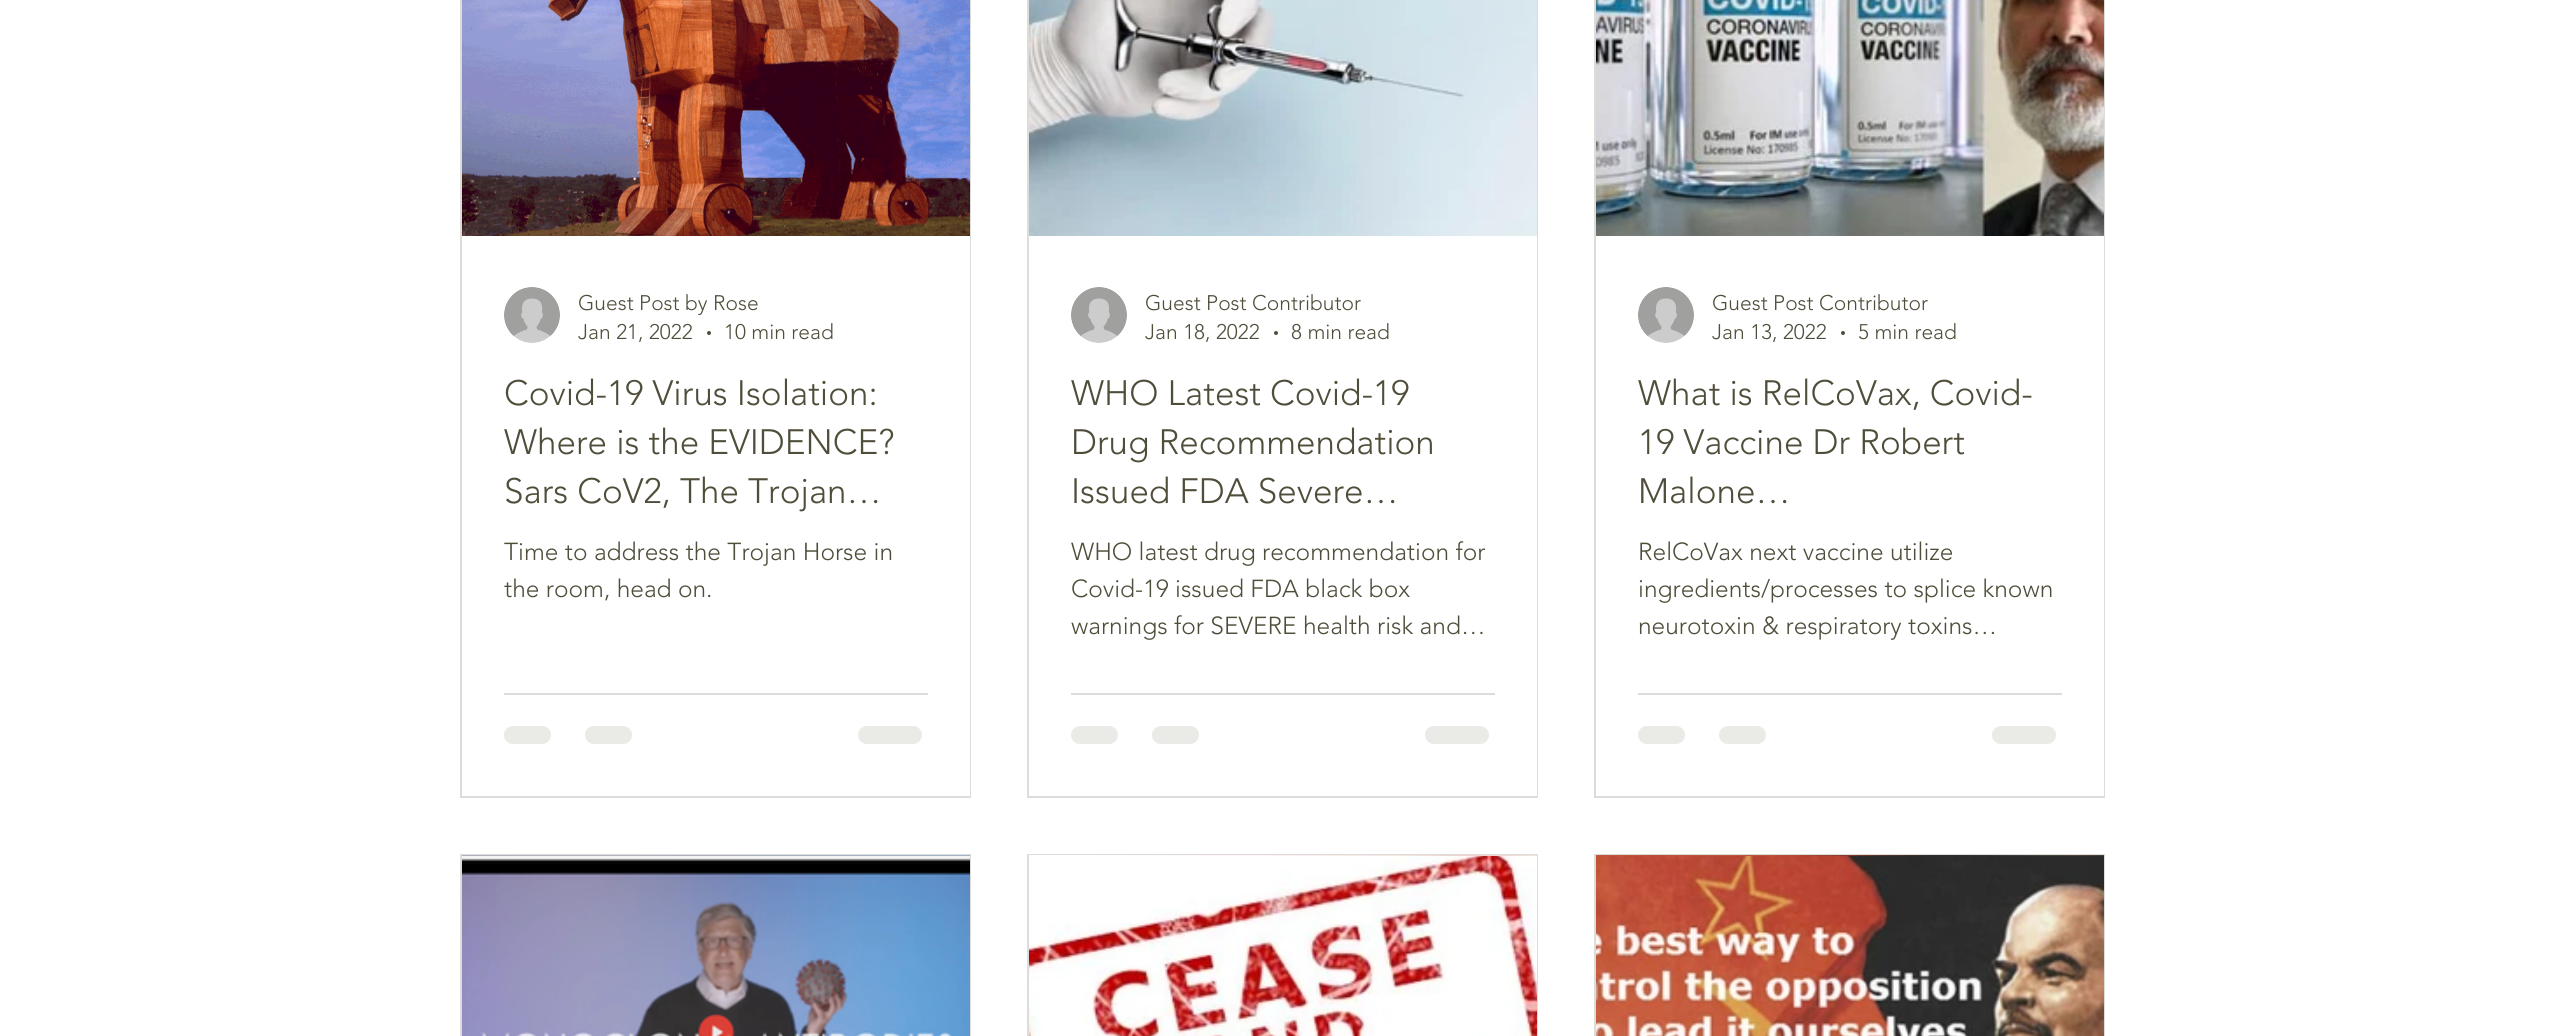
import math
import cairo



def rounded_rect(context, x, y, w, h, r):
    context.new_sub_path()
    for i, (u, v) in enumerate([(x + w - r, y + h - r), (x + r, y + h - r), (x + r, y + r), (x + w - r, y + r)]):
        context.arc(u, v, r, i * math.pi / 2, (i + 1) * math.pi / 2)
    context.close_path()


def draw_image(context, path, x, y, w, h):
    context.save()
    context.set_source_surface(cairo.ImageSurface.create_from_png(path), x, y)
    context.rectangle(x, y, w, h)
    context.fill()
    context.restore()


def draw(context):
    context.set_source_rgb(1, 1, 1)
    context.paint()
    context.rectangle(461, -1, 509, 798)
    context.set_source_rgb(220 / 255, 220 / 255, 216 / 255)
    context.stroke()
    draw_image(context, "images/1.png", 462, 0, 508, 174)
    draw_image(context, "images/2.png", 462, 173, 508, 63)
    context.set_source_rgb(1, 1, 1)
    context.rectangle(969, 236, 1, 560)
    context.fill()
    draw_image(context, "images/3.png", 504, 287, 56, 56)
    context.set_source_rgb(80 / 255, 78 / 255, 59 / 255)
    context.arc(709, 333, 2, 0, 2 * math.pi)
    context.fill()
    context.set_source_rgb(220 / 255, 220 / 255, 216 / 255)
    context.rectangle(504, 693, 424, 2)
    context.fill()
    context.set_source_rgb(234 / 255, 234 / 255, 231 / 255)
    rounded_rect(context, 504, 726, 47, 18, 9)
    context.fill()
    rounded_rect(context, 585, 726, 47, 18, 9)
    context.fill()
    rounded_rect(context, 858, 726, 64, 18, 9)
    context.fill()
    context.rectangle(1028, -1, 509, 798)
    context.set_source_rgb(220 / 255, 220 / 255, 216 / 255)
    context.stroke()
    draw_image(context, "images/4.png", 1029, 0, 508, 236)
    context.set_source_rgb(1, 1, 1)
    context.rectangle(1536, 236, 1, 560)
    context.fill()
    draw_image(context, "images/3.png", 1071, 287, 56, 56)
    context.set_source_rgb(80 / 255, 78 / 255, 59 / 255)
    context.arc(1276, 333, 2, 0, 2 * math.pi)
    context.fill()
    context.set_source_rgb(220 / 255, 220 / 255, 216 / 255)
    context.rectangle(1071, 693, 424, 2)
    context.fill()
    context.set_source_rgb(234 / 255, 234 / 255, 231 / 255)
    rounded_rect(context, 1071, 726, 47, 18, 9)
    context.fill()
    rounded_rect(context, 1152, 726, 47, 18, 9)
    context.fill()
    rounded_rect(context, 1425, 726, 64, 18, 9)
    context.fill()
    context.rectangle(1595, -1, 509, 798)
    context.set_source_rgb(220 / 255, 220 / 255, 216 / 255)
    context.stroke()
    draw_image(context, "images/5.png", 1596, 0, 508, 236)
    context.set_source_rgb(1, 1, 1)
    context.rectangle(2103, 236, 1, 560)
    context.fill()
    draw_image(context, "images/3.png", 1638, 287, 56, 56)
    context.set_source_rgb(80 / 255, 78 / 255, 59 / 255)
    context.arc(1843, 333, 2, 0, 2 * math.pi)
    context.fill()
    context.set_source_rgb(220 / 255, 220 / 255, 216 / 255)
    context.rectangle(1638, 693, 424, 2)
    context.fill()
    context.set_source_rgb(234 / 255, 234 / 255, 231 / 255)
    rounded_rect(context, 1638, 726, 47, 18, 9)
    context.fill()
    rounded_rect(context, 1719, 726, 47, 18, 9)
    context.fill()
    rounded_rect(context, 1992, 726, 64, 18, 9)
    context.fill()
    context.rectangle(461, 855, 509, 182)
    context.set_source_rgb(220 / 255, 220 / 255, 216 / 255)
    context.stroke()
    draw_image(context, "images/6.png", 462, 855, 508, 1)
    draw_image(context, "images/7.png", 462, 856, 508, 180)
    context.rectangle(1028, 855, 509, 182)
    context.stroke()
    draw_image(context, "images/8.png", 1029, 855, 508, 1)
    draw_image(context, "images/9.png", 1029, 856, 508, 180)
    context.rectangle(1595, 855, 509, 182)
    context.stroke()
    draw_image(context, "images/10.png", 1596, 855, 508, 1)
    draw_image(context, "images/11.png", 1596, 856, 508, 180)
    context.select_font_face("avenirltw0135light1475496 Light")
    context.set_font_size(21)
    context.set_source_rgb(80 / 255, 78 / 255, 59 / 255)
    context.move_to(578, 310)
    context.show_text("Guest Post by Rose")
    context.move_to(578, 339)
    context.show_text("Jan 21, 2022")
    context.move_to(724, 339)
    context.show_text("10 min read")
    context.set_font_size(35)
    context.move_to(504, 405)
    context.show_text("Covid-19 Virus Isolation:")
    context.move_to(504, 454)
    context.show_text("Where is the EVIDENCE?")
    context.move_to(504, 503)
    context.show_text("Sars CoV2, The Trojan…")
    context.set_font_size(24.5)
    context.move_to(504, 560)
    context.show_text("Time to address the Trojan Horse in")
    context.move_to(504, 597)
    context.show_text("the room, head on.")
    context.set_font_size(21)
    context.move_to(1145, 310)
    context.show_text("Guest Post Contributor")
    context.move_to(1145, 339)
    context.show_text("Jan 18, 2022")
    context.save()
    context.rectangle(1292, 320, 98, 25)
    context.clip()
    context.move_to(1291, 339)
    context.show_text("8 min read")
    context.restore()
    context.set_font_size(35)
    context.move_to(1071, 405)
    context.show_text("WHO Latest Covid-19")
    context.move_to(1071, 454)
    context.show_text("Drug Recommendation")
    context.move_to(1071, 503)
    context.show_text("Issued FDA Severe…")
    context.set_font_size(24.5)
    context.move_to(1071, 560)
    context.show_text("WHO latest drug recommendation for")
    context.move_to(1071, 597)
    context.show_text("Covid-19 issued FDA black box")
    context.move_to(1071, 634)
    context.show_text("warnings for SEVERE health risk and…")
    context.set_font_size(21)
    context.move_to(1712, 310)
    context.show_text("Guest Post Contributor")
    context.move_to(1712, 339)
    context.show_text("Jan 13, 2022")
    context.move_to(1858, 339)
    context.show_text("5 min read")
    context.set_font_size(35)
    context.move_to(1638, 405)
    context.show_text("What is RelCoVax, Covid-")
    context.move_to(1638, 454)
    context.show_text("19 Vaccine Dr Robert")
    context.move_to(1638, 503)
    context.show_text("Malone…")
    context.set_font_size(24.5)
    context.move_to(1638, 560)
    context.show_text("RelCoVax next vaccine utilize")
    context.move_to(1638, 597)
    context.show_text("ingredients/processes to splice known")
    context.move_to(1638, 634)
    context.show_text("neurotoxin & respiratory toxins…")


surface = cairo.ImageSurface(cairo.Format.RGB24, 2565, 1036)
context = cairo.Context(surface)
options = cairo.FontOptions()
options.set_hint_metrics(cairo.HintMetrics.OFF)
options.set_hint_style(cairo.HintStyle.NONE)
context.set_font_options(options)
context.set_miter_limit(4)
draw(context)
surface.write_to_png("out.png")
